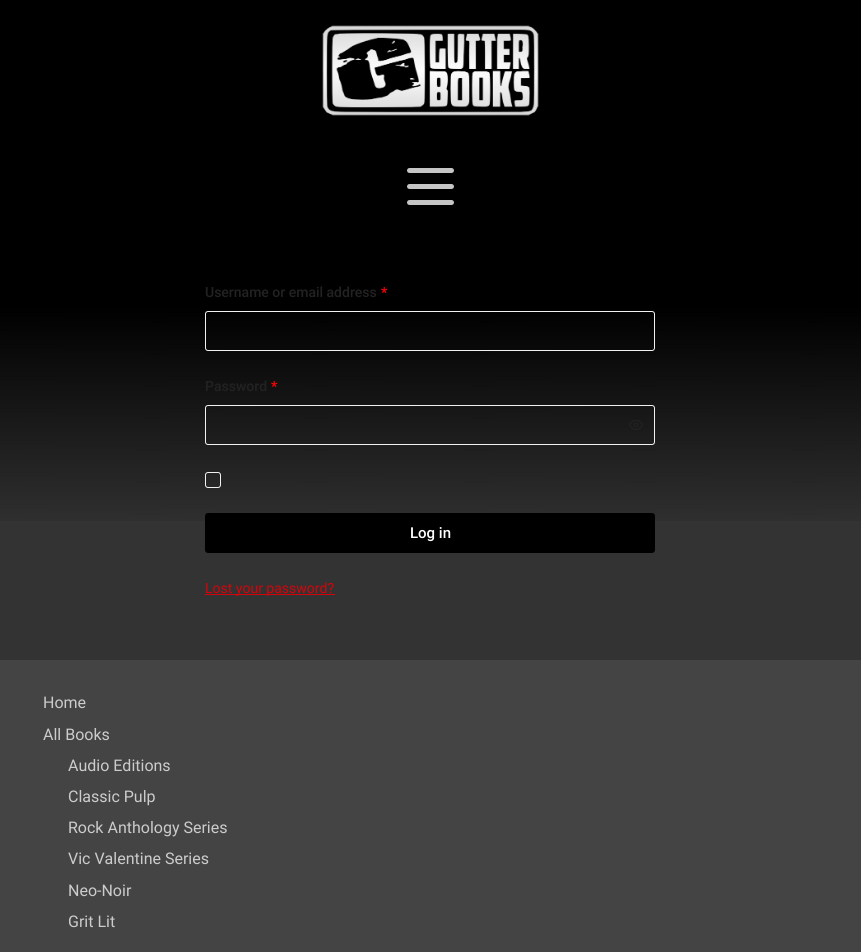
import math
import cairo



def rounded_rect(context, x, y, w, h, r):
    context.new_sub_path()
    for i, (u, v) in enumerate([(x + w - r, y + h - r), (x + r, y + h - r), (x + r, y + r), (x + w - r, y + r)]):
        context.arc(u, v, r, i * math.pi / 2, (i + 1) * math.pi / 2)
    context.close_path()


def draw_image(context, path, x, y, w, h):
    context.save()
    context.set_source_surface(cairo.ImageSurface.create_from_png(path), x, y)
    context.rectangle(x, y, w, h)
    context.fill()
    context.restore()


def draw(context):
    context.set_source_rgb(51 / 255, 51 / 255, 51 / 255)
    context.paint()
    context.set_source_rgb(0, 0, 0)
    context.rectangle(0, 0, 861, 231)
    context.fill()
    context.set_source_rgb(197 / 255, 197 / 255, 197 / 255)
    rounded_rect(context, 407, 168, 47, 5, 2.5)
    context.fill()
    rounded_rect(context, 407, 184, 47, 5, 2.5)
    context.fill()
    rounded_rect(context, 407, 200, 47, 5, 2.5)
    context.fill()
    draw_image(context, "images/1.png", 322, 25, 217, 91)
    draw_image(context, "images/2.png", 0, 231, 861, 290)
    rounded_rect(context, 205.5, 311.5, 449, 39, 2.5)
    context.set_source_rgb(240 / 255, 241 / 255, 241 / 255)
    context.set_line_width(1)
    context.stroke()
    rounded_rect(context, 205.5, 405.5, 449, 39, 2.5)
    context.stroke()
    draw_image(context, "images/3.png", 629, 420, 14, 10)
    rounded_rect(context, 205.5, 472.5, 15, 15, 2.5)
    context.stroke()
    context.set_source_rgb(0, 0, 0)
    rounded_rect(context, 205, 513, 450, 40, 3)
    context.fill()
    context.set_source_rgb(213 / 255, 3 / 255, 10 / 255)
    context.rectangle(205, 594, 130, 1)
    context.fill()
    context.set_source_rgb(68 / 255, 68 / 255, 68 / 255)
    context.rectangle(0, 660, 861, 292)
    context.fill()
    context.select_font_face("Roboto Medium")
    context.set_font_size(14)
    context.set_source_rgb(34 / 255, 34 / 255, 34 / 255)
    context.move_to(205, 297)
    context.show_text("Username or email address")
    context.select_font_face("Roboto", cairo.FontSlant.NORMAL, cairo.FontWeight.BOLD)
    context.set_source_rgb(1, 0, 0)
    context.move_to(381, 297)
    context.show_text("*")
    context.select_font_face("Roboto Medium")
    context.set_source_rgb(34 / 255, 34 / 255, 34 / 255)
    context.move_to(205, 391)
    context.show_text("Password")
    context.select_font_face("Roboto", cairo.FontSlant.NORMAL, cairo.FontWeight.BOLD)
    context.set_source_rgb(1, 0, 0)
    context.move_to(271, 391)
    context.show_text("*")
    context.select_font_face("Roboto Medium")
    context.set_font_size(15)
    context.set_source_rgb(1, 1, 1)
    context.move_to(410, 538)
    context.show_text("Log in")
    context.select_font_face("Roboto")
    context.set_font_size(14)
    context.set_source_rgb(213 / 255, 3 / 255, 10 / 255)
    context.move_to(205, 593)
    context.show_text("Lost your password?")
    context.set_font_size(16)
    context.set_source_rgb(204 / 255, 204 / 255, 204 / 255)
    context.move_to(43, 708)
    context.show_text("Home")
    context.move_to(43, 740)
    context.show_text("All Books")
    context.move_to(68, 771)
    context.show_text("Audio Editions")
    context.move_to(68, 802)
    context.show_text("Classic Pulp")
    context.move_to(68, 833)
    context.show_text("Rock Anthology Series")
    context.move_to(68, 864)
    context.show_text("Vic Valentine Series")
    context.move_to(68, 896)
    context.show_text("Neo-Noir")
    context.move_to(68, 927)
    context.show_text("Grit Lit")


surface = cairo.ImageSurface(cairo.Format.RGB24, 861, 952)
context = cairo.Context(surface)
options = cairo.FontOptions()
options.set_hint_metrics(cairo.HintMetrics.OFF)
options.set_hint_style(cairo.HintStyle.NONE)
context.set_font_options(options)
context.set_miter_limit(4)
draw(context)
surface.write_to_png("out.png")
